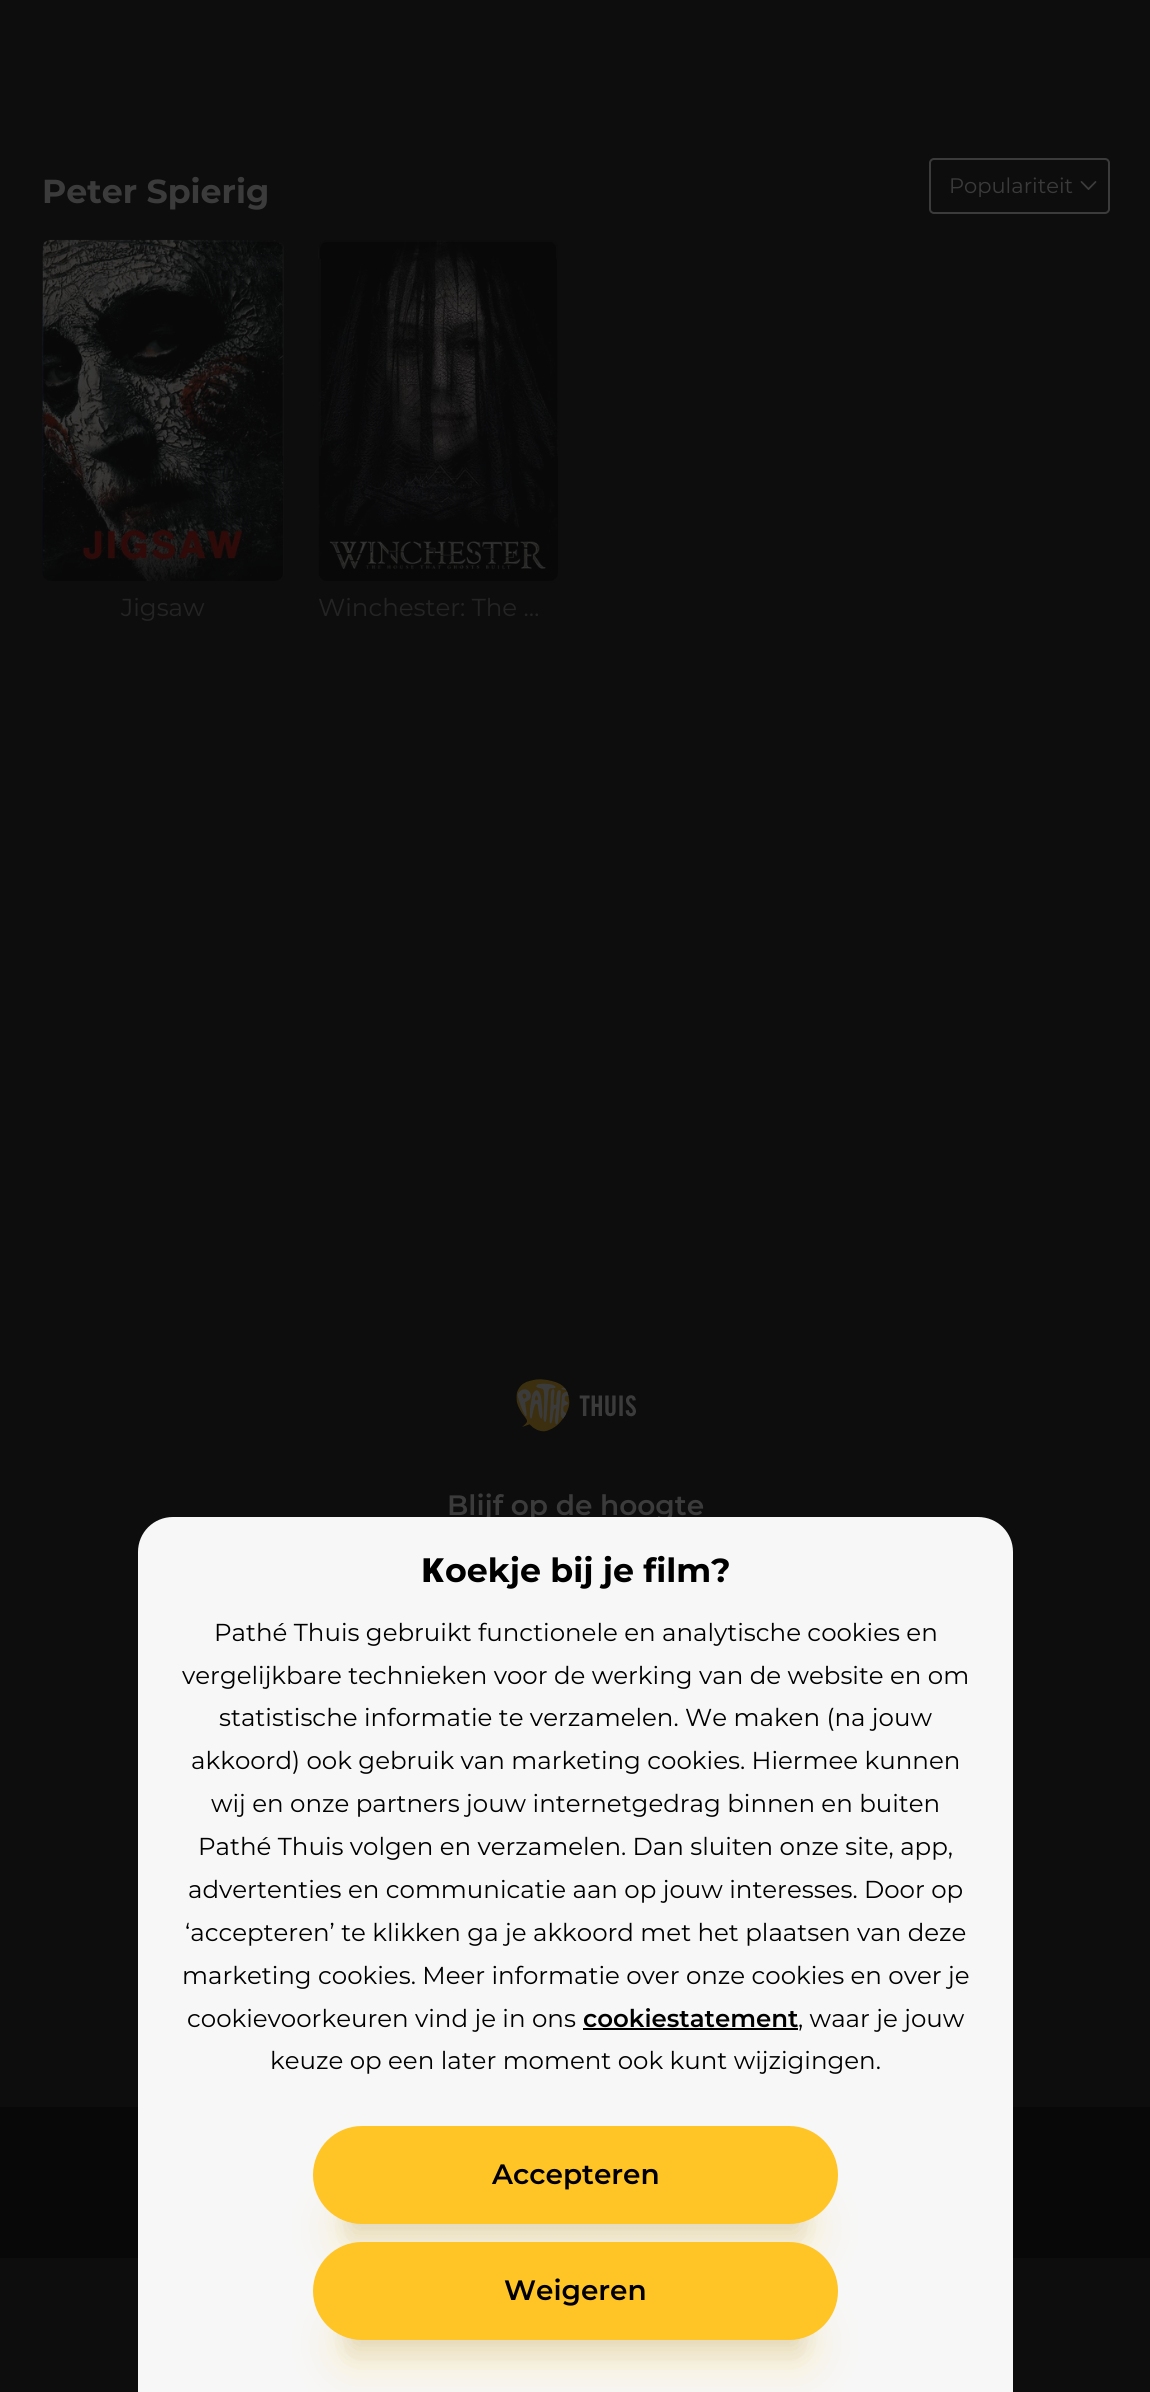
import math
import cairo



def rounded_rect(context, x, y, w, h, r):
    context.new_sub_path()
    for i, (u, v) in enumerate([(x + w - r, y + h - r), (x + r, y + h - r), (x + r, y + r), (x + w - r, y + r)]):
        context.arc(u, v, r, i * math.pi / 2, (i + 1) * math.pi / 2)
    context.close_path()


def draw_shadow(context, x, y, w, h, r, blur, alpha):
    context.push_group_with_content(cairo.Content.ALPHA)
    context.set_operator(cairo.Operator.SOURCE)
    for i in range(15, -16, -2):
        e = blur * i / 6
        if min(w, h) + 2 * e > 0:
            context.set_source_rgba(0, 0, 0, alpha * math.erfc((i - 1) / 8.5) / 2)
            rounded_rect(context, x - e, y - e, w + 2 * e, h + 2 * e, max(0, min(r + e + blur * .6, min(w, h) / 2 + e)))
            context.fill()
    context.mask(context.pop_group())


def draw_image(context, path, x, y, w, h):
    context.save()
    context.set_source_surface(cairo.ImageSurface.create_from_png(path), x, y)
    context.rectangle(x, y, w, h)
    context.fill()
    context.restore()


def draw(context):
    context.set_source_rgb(13 / 255, 13 / 255, 13 / 255)
    context.paint()
    rounded_rect(context, 930, 159, 179, 54, 4)
    context.set_source_rgb(59 / 255, 59 / 255, 59 / 255)
    context.stroke()
    draw_image(context, "images/1.png", 1080, 181, 17, 9)
    context.set_source_rgb(17 / 255, 17 / 255, 17 / 255)
    rounded_rect(context, 42, 240, 242, 341, 9)
    context.fill()
    draw_image(context, "images/2.png", 42, 239, 242, 342)
    context.set_source_rgba(59 / 255, 59 / 255, 59 / 255, 0.1)
    context.set_fill_rule(cairo.FillRule.EVEN_ODD)
    context.new_path()
    context.move_to(51, 240)
    context.line_to(275, 240)
    context.curve_to(280, 240, 284, 244, 284, 248)
    context.line_to(284, 259)
    context.line_to(42, 259)
    context.curve_to(42, 252, 40, 240, 51, 240)
    context.close_path()
    context.move_to(51, 242)
    context.line_to(275, 242)
    context.curve_to(279, 242, 282, 245, 282, 248)
    context.line_to(282, 259)
    context.line_to(44, 259)
    context.curve_to(44, 253, 42, 242, 51, 242)
    context.close_path()
    context.fill()
    gradient = cairo.LinearGradient(283, 259, 283, 600)
    gradient.add_color_stop_rgba(0, 59 / 255, 59 / 255, 59 / 255, 0.1)
    gradient.add_color_stop_rgba(1, 59 / 255, 59 / 255, 59 / 255, 0)
    context.set_source(gradient)
    context.rectangle(282, 259, 2, 197)
    context.fill()
    gradient = cairo.LinearGradient(43, 259, 43, 600)
    gradient.add_color_stop_rgba(0, 59 / 255, 59 / 255, 59 / 255, 0.1)
    gradient.add_color_stop_rgba(1, 59 / 255, 59 / 255, 59 / 255, 0)
    context.set_source(gradient)
    context.rectangle(42, 259, 2, 196)
    context.fill()
    draw_image(context, "images/3.png", 318, 240, 240, 341)
    context.set_source_rgba(59 / 255, 59 / 255, 59 / 255, 0.1)
    context.new_path()
    context.move_to(327, 240)
    context.line_to(550, 240)
    context.curve_to(554, 240, 558, 244, 558, 248)
    context.line_to(558, 259)
    context.line_to(318, 259)
    context.curve_to(318, 252, 317, 240, 327, 240)
    context.close_path()
    context.move_to(327, 242)
    context.line_to(550, 242)
    context.curve_to(553, 242, 556, 245, 556, 248)
    context.line_to(556, 259)
    context.line_to(320, 259)
    context.curve_to(320, 253, 318, 242, 327, 242)
    context.close_path()
    context.fill()
    gradient = cairo.LinearGradient(557, 259, 557, 600)
    gradient.add_color_stop_rgba(0, 59 / 255, 59 / 255, 59 / 255, 0.1)
    gradient.add_color_stop_rgba(1, 59 / 255, 59 / 255, 59 / 255, 0)
    context.set_source(gradient)
    context.rectangle(557, 259, 1, 197)
    context.fill()
    gradient = cairo.LinearGradient(319, 259, 319, 600)
    gradient.add_color_stop_rgba(0, 59 / 255, 59 / 255, 59 / 255, 0.1)
    gradient.add_color_stop_rgba(1, 59 / 255, 59 / 255, 59 / 255, 0)
    context.set_source(gradient)
    context.rectangle(319, 259, 2, 197)
    context.fill()
    draw_image(context, "images/4.png", 516, 1379, 120, 53)
    context.set_source_rgb(8 / 255, 8 / 255, 8 / 255)
    context.rectangle(0, 2107, 1150, 151)
    context.fill()
    context.select_font_face("Montserrat", cairo.FontSlant.NORMAL, cairo.FontWeight.BOLD)
    context.set_font_size(33.25)
    context.set_source_rgb(59 / 255, 59 / 255, 59 / 255)
    context.move_to(42, 203)
    context.show_text("Peter Spierig")
    context.select_font_face("Montserrat")
    context.set_font_size(21)
    context.move_to(949, 193)
    context.show_text("Populariteit")
    context.set_font_size(24.5)
    context.set_source_rgb(36 / 255, 36 / 255, 36 / 255)
    context.move_to(121, 616)
    context.show_text("Jigsaw")
    context.move_to(318, 616)
    context.show_text("Winchester: The …")
    context.select_font_face("Montserrat SemiBold")
    context.set_font_size(28)
    context.set_source_rgb(59 / 255, 59 / 255, 59 / 255)
    context.move_to(447, 1515)
    context.show_text("Blijf op de hoogte")
    context.set_source_rgb(247 / 255, 247 / 255, 247 / 255)
    context.new_path()
    context.move_to(173, 1517)
    context.line_to(978, 1517)
    context.curve_to(997.5, 1517, 1013, 1532.5, 1013, 1552)
    context.line_to(1013, 2392)
    context.line_to(138, 2392)
    context.line_to(138, 1552)
    context.curve_to(138, 1532.5, 153.5, 1517, 173, 1517)
    context.close_path()
    context.fill()
    context.select_font_face("Noto Sans Black")
    context.set_font_size(33.25)
    context.set_source_rgb(0, 0, 0)
    context.move_to(421, 1582)
    context.show_text("K")
    context.select_font_face("Montserrat", cairo.FontSlant.NORMAL, cairo.FontWeight.BOLD)
    context.move_to(445, 1582)
    context.show_text("oekje bij je film?")
    context.select_font_face("Montserrat")
    context.set_font_size(24.5)
    context.move_to(214, 1641)
    context.show_text("Pathé Thuis gebruikt functionele en analytische cookies en")
    context.move_to(182, 1684)
    context.show_text("vergelijkbare technieken voor de werking van de website en om")
    context.move_to(219, 1726)
    context.show_text("statistische informatie te verzamelen. We maken (na jouw")
    context.move_to(191, 1769)
    context.show_text("akkoord) ook gebruik van marketing cookies. Hiermee kunnen")
    context.move_to(211, 1812)
    context.show_text("wij en onze partners jouw internetgedrag binnen en buiten")
    context.move_to(198, 1855)
    context.show_text("Pathé Thuis volgen en verzamelen. Dan sluiten onze site, app,")
    context.move_to(188, 1898)
    context.show_text("advertenties en communicatie aan op jouw interesses. Door op")
    context.move_to(185, 1941)
    context.show_text("‘accepteren’ te klikken ga je akkoord met het plaatsen van deze")
    context.move_to(182, 1984)
    context.show_text("marketing cookies. Meer informatie over onze cookies en over je")
    context.move_to(187, 2027)
    context.show_text("cookievoorkeuren vind je in ons")
    context.select_font_face("Montserrat SemiBold")
    context.move_to(583, 2027)
    context.show_text("cookiestatement")
    context.rectangle(583, 2028, 215, 2)
    context.fill()
    context.select_font_face("Montserrat")
    context.move_to(798, 2027)
    context.show_text(", waar je jouw")
    context.move_to(270, 2069)
    context.show_text("keuze op een later moment ook kunt wijzigingen.")
    context.set_source_rgb(1, 196 / 255, 38 / 255)
    draw_shadow(context, 348, 2214, 455, 28, 14, 26, 0.3)
    context.set_source_rgb(0, 0, 0)
    draw_shadow(context, 348, 2205, 455, 28, 14, 13, 0.1)
    context.set_source_rgb(1, 196 / 255, 38 / 255)
    rounded_rect(context, 313, 2126, 525, 98, 49)
    context.fill()
    context.select_font_face("Montserrat SemiBold")
    context.set_font_size(28)
    context.set_source_rgb(0, 0, 0)
    context.move_to(492, 2184)
    context.show_text("Accepteren")
    context.set_source_rgb(1, 196 / 255, 38 / 255)
    draw_shadow(context, 348, 2329, 455, 28, 14, 26, 0.3)
    context.set_source_rgb(0, 0, 0)
    draw_shadow(context, 348, 2321, 455, 28, 14, 13, 0.1)
    context.set_source_rgb(1, 196 / 255, 38 / 255)
    rounded_rect(context, 313, 2242, 525, 98, 49)
    context.fill()
    context.set_source_rgb(0, 0, 0)
    context.move_to(504, 2300)
    context.show_text("Weigeren")


surface = cairo.ImageSurface(cairo.Format.RGB24, 1150, 2392)
context = cairo.Context(surface)
options = cairo.FontOptions()
options.set_hint_metrics(cairo.HintMetrics.OFF)
options.set_hint_style(cairo.HintStyle.NONE)
context.set_font_options(options)
context.set_miter_limit(4)
draw(context)
surface.write_to_png("out.png")
